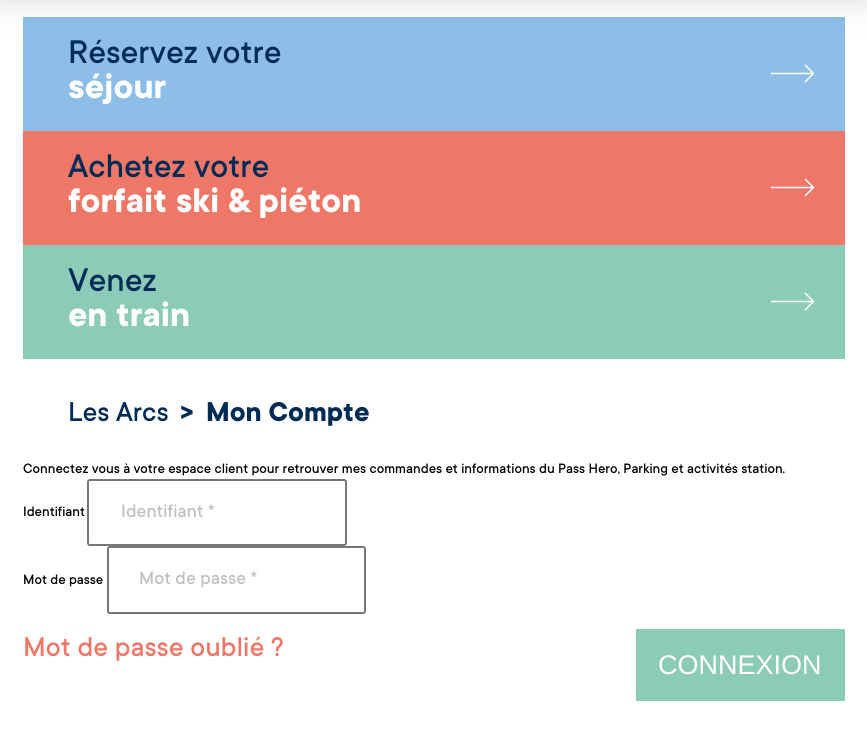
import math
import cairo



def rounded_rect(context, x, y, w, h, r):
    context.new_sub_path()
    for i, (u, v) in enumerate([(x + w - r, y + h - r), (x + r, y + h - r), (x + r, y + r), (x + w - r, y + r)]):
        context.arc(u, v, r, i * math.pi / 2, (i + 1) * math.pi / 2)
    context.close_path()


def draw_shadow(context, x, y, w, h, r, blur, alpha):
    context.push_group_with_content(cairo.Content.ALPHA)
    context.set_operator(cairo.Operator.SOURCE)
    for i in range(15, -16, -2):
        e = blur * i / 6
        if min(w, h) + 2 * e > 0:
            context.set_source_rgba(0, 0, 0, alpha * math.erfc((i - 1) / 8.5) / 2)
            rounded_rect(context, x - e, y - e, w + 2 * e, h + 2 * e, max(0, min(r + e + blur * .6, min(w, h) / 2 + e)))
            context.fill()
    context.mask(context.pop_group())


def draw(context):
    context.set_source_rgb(1, 1, 1)
    context.paint()
    context.set_source_rgb(141 / 255, 190 / 255, 232 / 255)
    context.rectangle(23, 17, 822, 114)
    context.fill()
    context.set_source_rgb(0, 0, 0)
    draw_shadow(context, 0, -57, 867, 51, 0, 19, 0.2)
    context.new_path()
    context.move_to(805, 65)
    context.line_to(813.5, 73.5)
    context.line_to(805, 82)
    context.move_to(813.5, 73.5)
    context.line_to(771, 73.5)
    context.set_source_rgb(1, 1, 1)
    context.set_line_width(1.5)
    context.stroke()
    context.set_source_rgb(239 / 255, 119 / 255, 103 / 255)
    context.rectangle(23, 131, 822, 114)
    context.fill()
    context.new_path()
    context.move_to(805, 179)
    context.line_to(813.5, 187.5)
    context.line_to(805, 196)
    context.move_to(813.5, 187.5)
    context.line_to(771, 187.5)
    context.set_source_rgb(1, 1, 1)
    context.stroke()
    context.set_source_rgb(139 / 255, 203 / 255, 183 / 255)
    context.rectangle(23, 245, 822, 114)
    context.fill()
    context.new_path()
    context.move_to(805, 293)
    context.line_to(813.5, 301.5)
    context.line_to(805, 310)
    context.move_to(813.5, 301.5)
    context.line_to(771, 301.5)
    context.set_source_rgb(1, 1, 1)
    context.stroke()
    rounded_rect(context, 88, 480, 258, 65, 2)
    context.set_source_rgb(118 / 255, 118 / 255, 118 / 255)
    context.set_line_width(2)
    context.stroke()
    rounded_rect(context, 108, 547, 257, 66, 2)
    context.stroke()
    context.set_source_rgb(139 / 255, 203 / 255, 183 / 255)
    context.rectangle(636, 629, 209, 72)
    context.fill()
    context.select_font_face("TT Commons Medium")
    context.set_font_size(36)
    context.set_source_rgb(0, 43 / 255, 86 / 255)
    context.move_to(68, 63)
    context.show_text("Réservez votre")
    context.select_font_face("TT Commons", cairo.FontSlant.NORMAL, cairo.FontWeight.BOLD)
    context.set_font_size(37.5)
    context.set_source_rgb(1, 1, 1)
    context.move_to(68, 98)
    context.show_text("séjour")
    context.select_font_face("TT Commons Medium")
    context.set_font_size(36)
    context.set_source_rgb(0, 43 / 255, 86 / 255)
    context.move_to(68, 177)
    context.show_text("Achetez votre")
    context.select_font_face("TT Commons", cairo.FontSlant.NORMAL, cairo.FontWeight.BOLD)
    context.set_font_size(37.5)
    context.set_source_rgb(1, 1, 1)
    context.move_to(68, 212)
    context.show_text("forfait ski & piéton")
    context.select_font_face("TT Commons Medium")
    context.set_font_size(36)
    context.set_source_rgb(0, 43 / 255, 86 / 255)
    context.move_to(68, 291)
    context.show_text("Venez")
    context.select_font_face("TT Commons", cairo.FontSlant.NORMAL, cairo.FontWeight.BOLD)
    context.set_font_size(37.5)
    context.set_source_rgb(1, 1, 1)
    context.move_to(68, 326)
    context.show_text("en train")
    context.select_font_face("TT Commons Medium")
    context.set_font_size(30)
    context.set_source_rgb(0, 43 / 255, 86 / 255)
    context.move_to(68, 421)
    context.show_text("Les Arcs")
    context.select_font_face("TT Commons", cairo.FontSlant.NORMAL, cairo.FontWeight.BOLD)
    context.move_to(180, 419)
    context.show_text(">")
    context.move_to(206, 421)
    context.show_text("Mon Compte")
    context.select_font_face("TT Commons Medium")
    context.set_font_size(15)
    context.set_source_rgb(0, 0, 0)
    context.move_to(23, 473)
    context.show_text("Connectez vous à votre espace client pour retrouver mes commandes et informations du Pass Hero, Parking et activités station.")
    context.move_to(23, 516)
    context.show_text("Identifiant")
    context.set_font_size(20)
    context.set_source_rgb(193 / 255, 193 / 255, 193 / 255)
    context.move_to(121, 517)
    context.show_text("Identifiant *")
    context.set_font_size(15)
    context.set_source_rgb(0, 0, 0)
    context.move_to(23, 584)
    context.show_text("Mot de passe")
    context.set_font_size(20)
    context.set_source_rgb(193 / 255, 193 / 255, 193 / 255)
    context.move_to(139, 584)
    context.show_text("Mot de passe *")
    context.set_font_size(30)
    context.set_source_rgb(239 / 255, 119 / 255, 103 / 255)
    context.move_to(23, 656)
    context.show_text("Mot de passe oublié ?")
    context.select_font_face("Liberation Sans")
    context.set_font_size(27)
    context.set_source_rgb(1, 1, 1)
    context.move_to(658, 674)
    context.show_text("CONNEXION")


surface = cairo.ImageSurface(cairo.Format.RGB24, 867, 732)
context = cairo.Context(surface)
options = cairo.FontOptions()
options.set_hint_metrics(cairo.HintMetrics.OFF)
options.set_hint_style(cairo.HintStyle.NONE)
context.set_font_options(options)
context.set_miter_limit(4)
draw(context)
surface.write_to_png("out.png")
